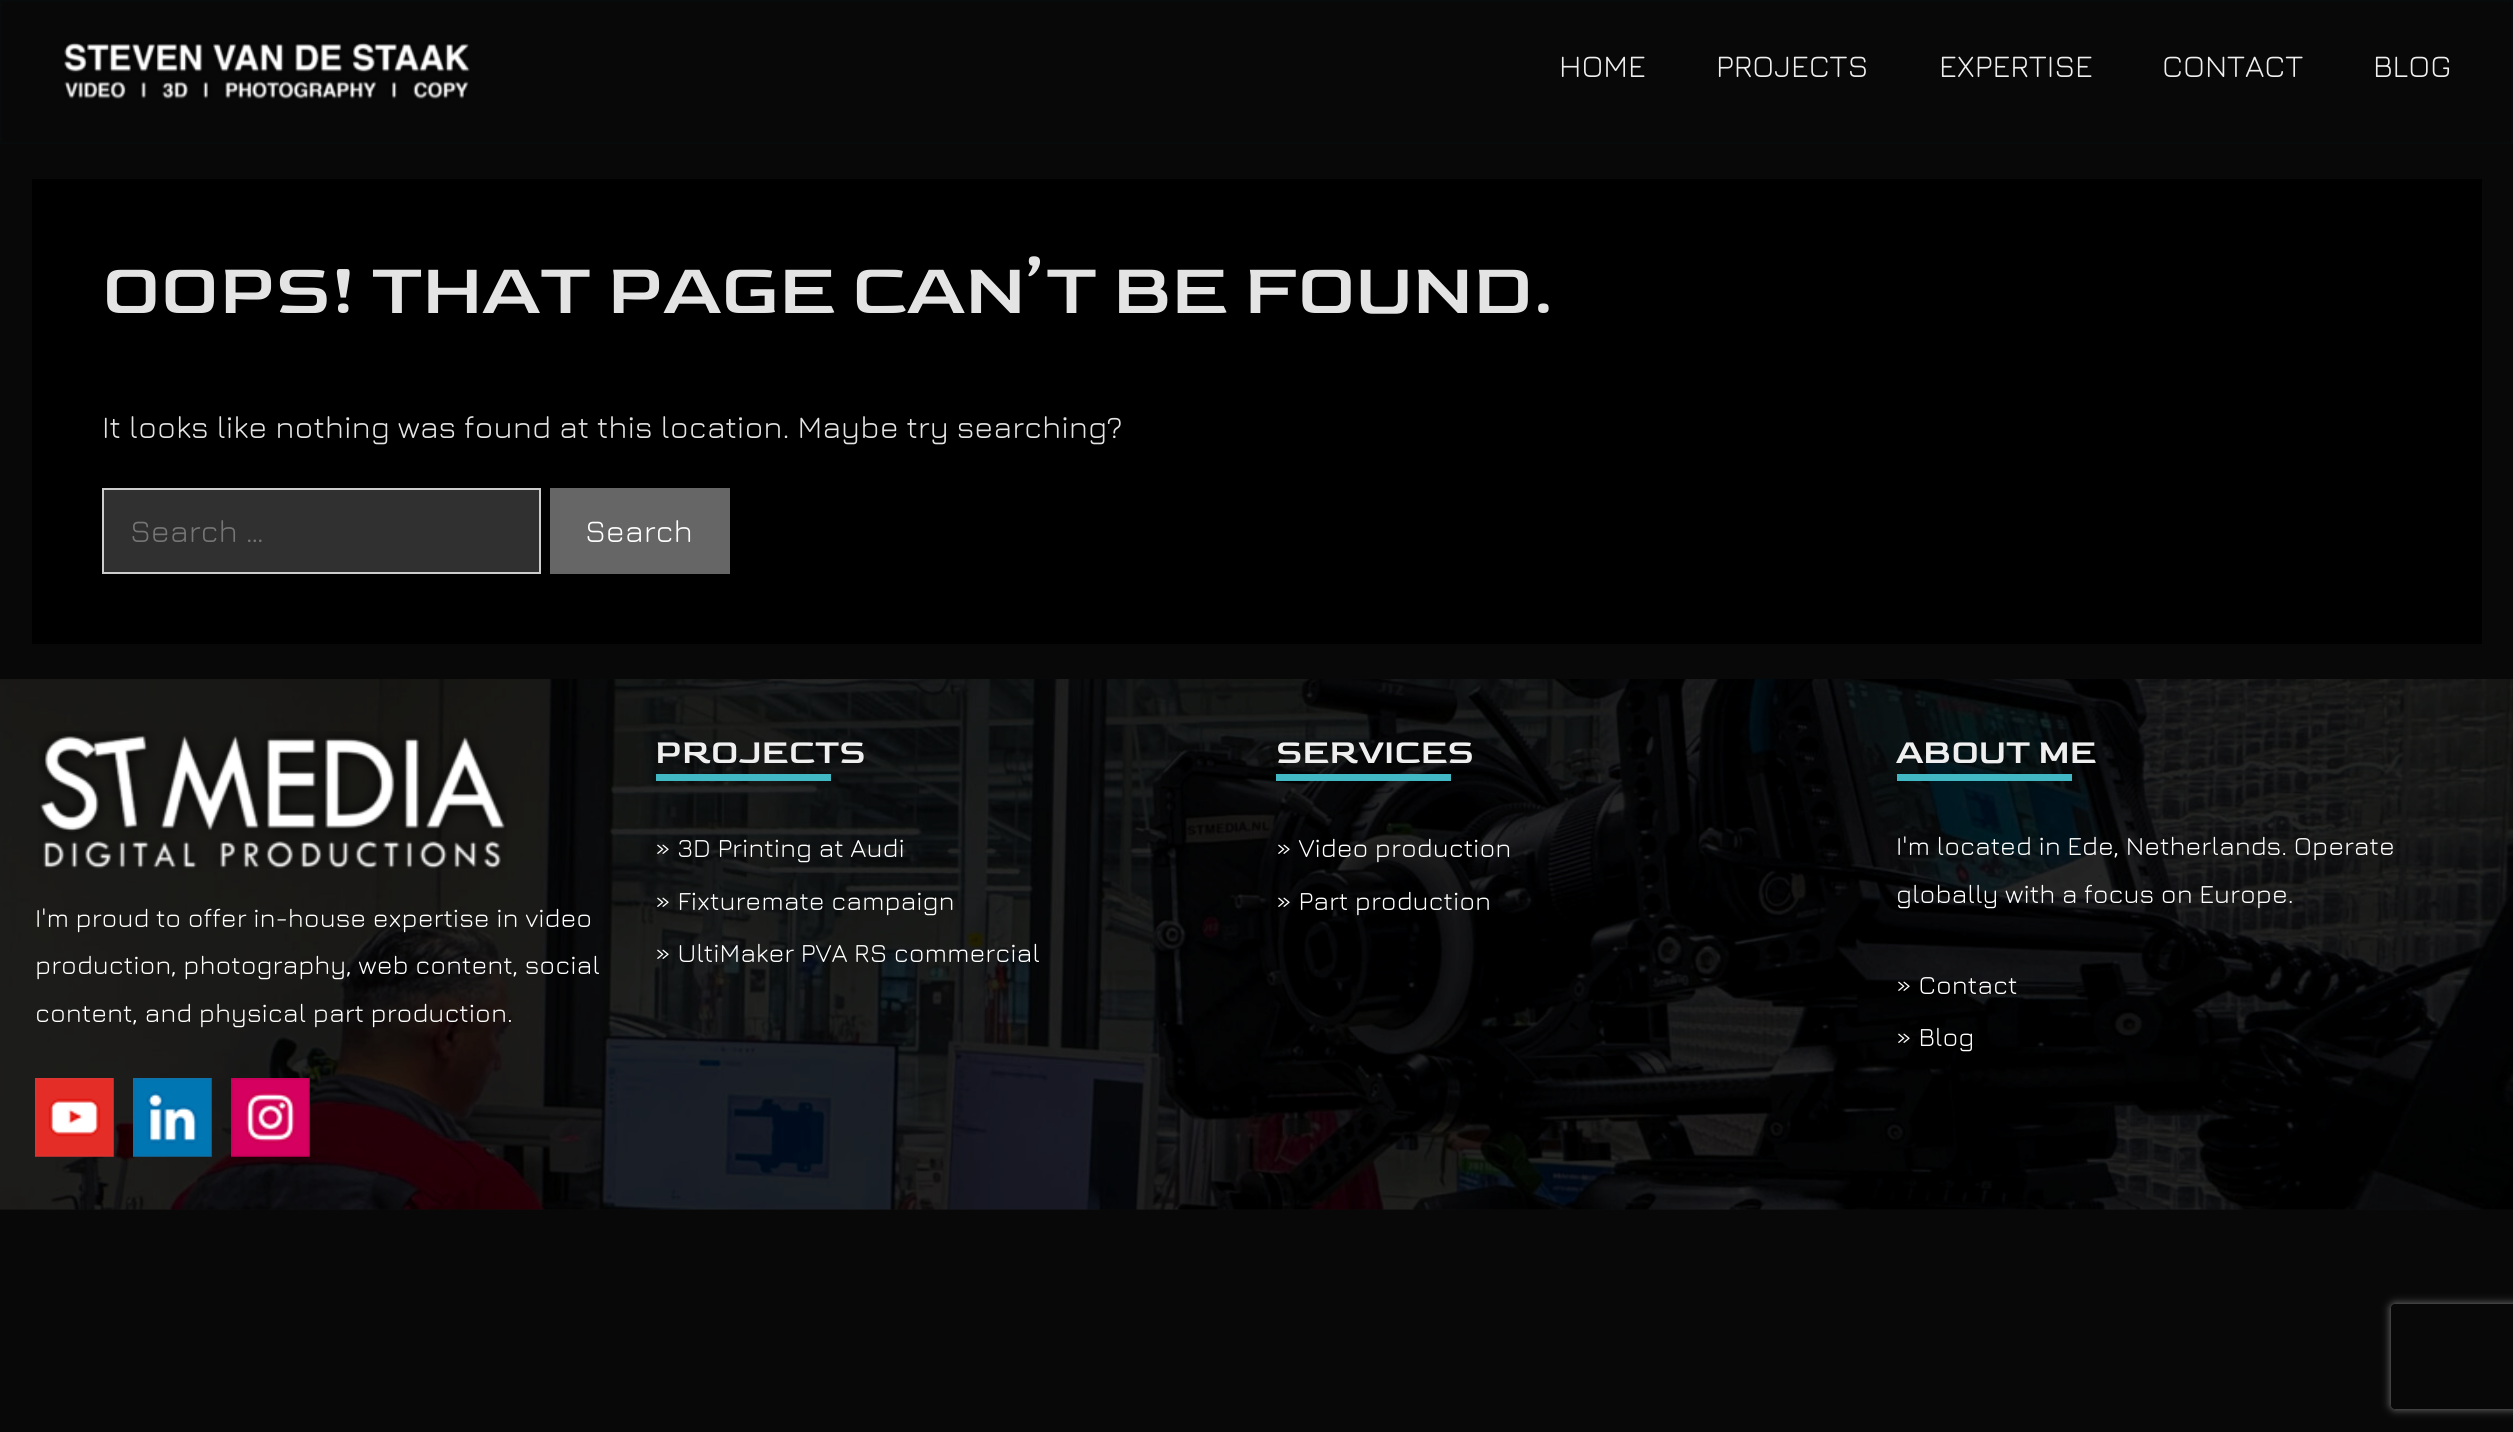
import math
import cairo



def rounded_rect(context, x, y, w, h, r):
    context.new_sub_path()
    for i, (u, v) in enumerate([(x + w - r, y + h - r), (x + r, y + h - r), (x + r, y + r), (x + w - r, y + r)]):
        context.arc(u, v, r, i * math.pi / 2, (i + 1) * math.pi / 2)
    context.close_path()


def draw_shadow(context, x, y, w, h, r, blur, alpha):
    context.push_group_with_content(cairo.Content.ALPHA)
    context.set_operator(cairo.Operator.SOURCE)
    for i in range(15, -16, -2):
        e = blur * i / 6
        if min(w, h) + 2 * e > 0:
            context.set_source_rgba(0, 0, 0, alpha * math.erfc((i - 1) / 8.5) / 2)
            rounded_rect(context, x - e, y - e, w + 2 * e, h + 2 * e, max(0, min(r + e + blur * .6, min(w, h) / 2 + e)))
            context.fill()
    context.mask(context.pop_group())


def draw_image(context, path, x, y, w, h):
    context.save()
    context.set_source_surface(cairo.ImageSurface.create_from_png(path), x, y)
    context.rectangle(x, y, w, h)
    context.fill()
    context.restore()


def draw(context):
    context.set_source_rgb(8 / 255, 8 / 255, 8 / 255)
    context.paint()
    context.rectangle(1, 1, 2511, 142)
    context.set_source_rgb(8 / 255, 11 / 255, 11 / 255)
    context.stroke()
    draw_image(context, "images/1.png", 64, 42, 406, 57)
    context.set_source_rgb(0, 0, 0)
    context.rectangle(32, 179, 2450, 465)
    context.fill()
    context.set_source_rgb(48 / 255, 48 / 255, 48 / 255)
    context.rectangle(103, 489, 437, 84)
    context.fill_preserve()
    context.set_source_rgb(204 / 255, 204 / 255, 204 / 255)
    context.stroke()
    context.set_source_rgb(102 / 255, 102 / 255, 102 / 255)
    context.rectangle(550, 488, 180, 86)
    context.fill()
    draw_image(context, "images/2.png", 0, 679, 2513, 531)
    draw_image(context, "images/3.png", 38, 731, 469, 138)
    draw_image(context, "images/4.png", 35, 1078, 79, 79)
    draw_image(context, "images/5.png", 133, 1078, 79, 79)
    draw_image(context, "images/6.png", 231, 1078, 79, 79)
    context.set_source_rgb(66 / 255, 184 / 255, 197 / 255)
    context.rectangle(656, 774, 175, 7)
    context.fill()
    context.rectangle(1276, 774, 175, 7)
    context.fill()
    context.rectangle(1897, 774, 175, 7)
    context.fill()
    context.save()
    context.set_fill_rule(cairo.FillRule.EVEN_ODD)
    context.new_path()
    context.move_to(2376, 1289)
    context.line_to(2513, 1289)
    context.line_to(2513, 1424)
    context.line_to(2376, 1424)
    context.close_path()
    context.move_to(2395, 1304)
    context.line_to(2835, 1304)
    context.curve_to(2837, 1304, 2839, 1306, 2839, 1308)
    context.line_to(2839, 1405)
    context.curve_to(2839, 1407, 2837, 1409, 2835, 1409)
    context.line_to(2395, 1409)
    context.curve_to(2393, 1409, 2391, 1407, 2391, 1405)
    context.line_to(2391, 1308)
    context.curve_to(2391, 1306, 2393, 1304, 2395, 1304)
    context.close_path()
    context.clip()
    context.set_source_rgb(128 / 255, 128 / 255, 128 / 255)
    draw_shadow(context, 2391, 1304, 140, 105, 4, 4.5, 1)
    context.restore()
    context.select_font_face("Jura")
    context.set_font_size(31.5)
    context.set_source_rgb(239 / 255, 239 / 255, 239 / 255)
    context.move_to(1559, 77)
    context.show_text("HOME")
    context.move_to(1716, 77)
    context.show_text("PROJECTS")
    context.move_to(1939, 77)
    context.show_text("EXPERTISE")
    context.move_to(2162, 77)
    context.show_text("CONTACT")
    context.move_to(2373, 77)
    context.show_text("BLOG")
    context.select_font_face("Goldman")
    context.set_font_size(73.5)
    context.set_source_rgb(228 / 255, 228 / 255, 228 / 255)
    context.move_to(102, 313)
    context.show_text("OOPS! THAT PAGE CAN’T BE FOUND.")
    context.select_font_face("Jura")
    context.set_font_size(31.5)
    context.move_to(102, 438)
    context.show_text("It looks like nothing was found at this location. Maybe try searching?")
    context.set_source_rgb(117 / 255, 117 / 255, 117 / 255)
    context.move_to(130, 542)
    context.show_text("Search …")
    context.set_source_rgb(1, 1, 1)
    context.move_to(585, 542)
    context.show_text("Search")
    context.set_font_size(26.25)
    context.move_to(35, 927)
    context.show_text("I'm proud to offer in-house expertise in video")
    context.move_to(35, 974)
    context.show_text("production, photography, web content, social")
    context.move_to(35, 1022)
    context.show_text("content, and physical part production.")
    context.select_font_face("Goldman")
    context.set_font_size(35)
    context.set_source_rgb(239 / 255, 239 / 255, 239 / 255)
    context.move_to(655, 763)
    context.show_text("PROJECTS")
    context.select_font_face("Jura")
    context.set_font_size(26.25)
    context.set_source_rgb(1, 1, 1)
    context.move_to(655, 857)
    context.show_text("» 3D Printing at Audi")
    context.move_to(655, 910)
    context.show_text("» Fixturemate campaign")
    context.move_to(655, 962)
    context.show_text("» UltiMaker PVA RS commercial")
    context.select_font_face("Goldman")
    context.set_font_size(35)
    context.set_source_rgb(239 / 255, 239 / 255, 239 / 255)
    context.move_to(1276, 763)
    context.show_text("SERVICES")
    context.select_font_face("Jura")
    context.set_font_size(26.25)
    context.set_source_rgb(1, 1, 1)
    context.move_to(1276, 857)
    context.show_text("» Video production")
    context.move_to(1276, 910)
    context.show_text("» Part production")
    context.select_font_face("Goldman")
    context.set_font_size(35)
    context.set_source_rgb(239 / 255, 239 / 255, 239 / 255)
    context.move_to(1896, 763)
    context.show_text("ABOUT ME")
    context.select_font_face("Jura")
    context.set_font_size(26.25)
    context.set_source_rgb(1, 1, 1)
    context.move_to(1896, 855)
    context.show_text("I'm located in Ede, Netherlands. Operate")
    context.move_to(1896, 903)
    context.show_text("globally with a focus on Europe.")
    context.move_to(1896, 994)
    context.show_text("» Contact")
    context.move_to(1896, 1046)
    context.show_text("» Blog")


surface = cairo.ImageSurface(cairo.Format.RGB24, 2513, 1432)
context = cairo.Context(surface)
options = cairo.FontOptions()
options.set_hint_metrics(cairo.HintMetrics.OFF)
options.set_hint_style(cairo.HintStyle.NONE)
context.set_font_options(options)
context.set_miter_limit(4)
draw(context)
surface.write_to_png("out.png")
